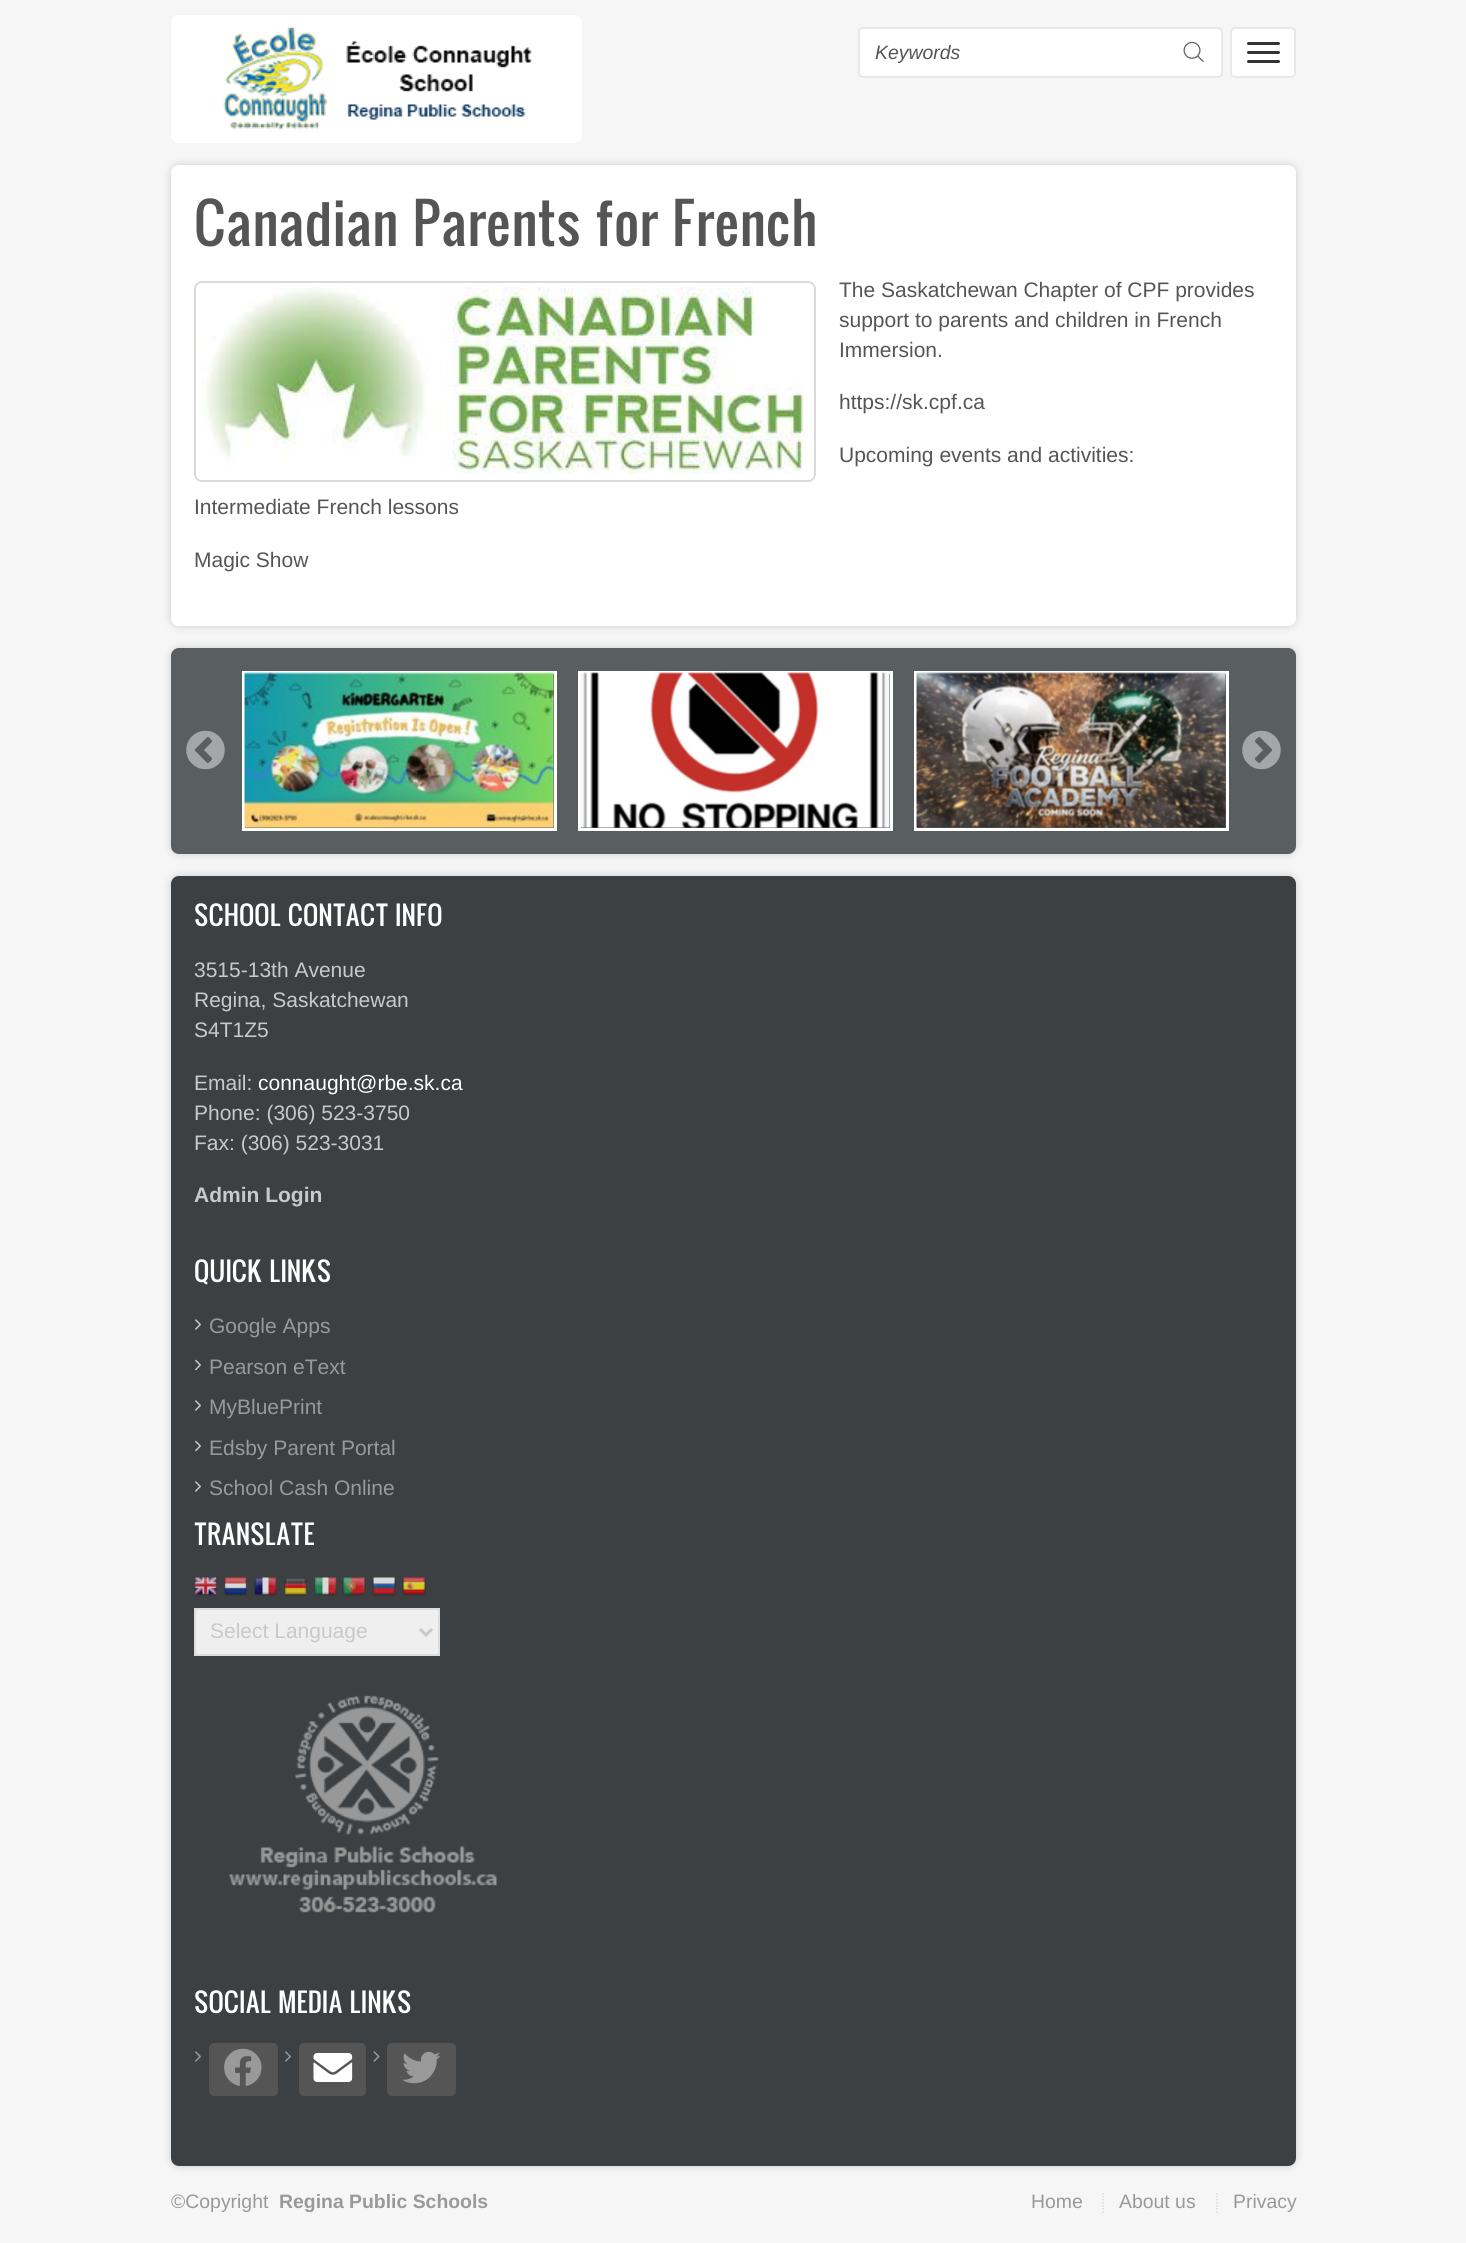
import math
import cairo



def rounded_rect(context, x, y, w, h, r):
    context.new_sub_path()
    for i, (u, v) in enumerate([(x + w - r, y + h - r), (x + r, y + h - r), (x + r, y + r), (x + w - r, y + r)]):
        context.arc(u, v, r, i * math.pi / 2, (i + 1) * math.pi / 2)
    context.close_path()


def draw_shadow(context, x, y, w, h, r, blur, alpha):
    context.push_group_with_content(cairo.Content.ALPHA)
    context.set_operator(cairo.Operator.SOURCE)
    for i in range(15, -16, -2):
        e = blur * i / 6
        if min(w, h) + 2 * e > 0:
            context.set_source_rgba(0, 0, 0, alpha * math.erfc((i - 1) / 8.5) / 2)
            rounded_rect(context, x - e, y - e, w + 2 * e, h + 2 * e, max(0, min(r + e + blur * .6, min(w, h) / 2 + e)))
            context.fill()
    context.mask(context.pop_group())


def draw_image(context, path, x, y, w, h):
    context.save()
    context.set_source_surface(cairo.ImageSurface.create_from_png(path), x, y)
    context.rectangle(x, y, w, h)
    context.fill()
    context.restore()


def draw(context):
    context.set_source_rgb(246 / 255, 246 / 255, 246 / 255)
    context.paint()
    context.set_source_rgb(1, 1, 1)
    rounded_rect(context, 171, 15, 411, 128, 8)
    context.fill()
    draw_image(context, "images/1.png", 223, 26, 309, 105)
    rounded_rect(context, 859, 28, 363, 49, 4)
    context.fill_preserve()
    context.set_source_rgb(231 / 255, 232 / 255, 233 / 255)
    context.stroke()
    draw_image(context, "images/2.png", 1183, 41, 21, 22)
    context.set_source_rgb(1, 1, 1)
    rounded_rect(context, 1231, 28, 64, 49, 4)
    context.fill_preserve()
    context.set_source_rgb(231 / 255, 232 / 255, 233 / 255)
    context.stroke()
    context.set_source_rgb(51 / 255, 51 / 255, 51 / 255)
    rounded_rect(context, 1247, 42, 33, 3, 1.5)
    context.fill()
    rounded_rect(context, 1247, 51, 33, 3, 1.5)
    context.fill()
    rounded_rect(context, 1247, 60, 33, 3, 1.5)
    context.fill()
    context.set_source_rgb(204 / 255, 204 / 255, 204 / 255)
    draw_shadow(context, 171, 165, 1125, 461, 8, 4, 1)
    context.set_source_rgb(1, 1, 1)
    rounded_rect(context, 171, 165, 1125, 461, 8)
    context.fill()
    rounded_rect(context, 195, 282, 620, 199, 7)
    context.set_source_rgb(218 / 255, 218 / 255, 218 / 255)
    context.stroke()
    draw_image(context, "images/3.png", 201, 287, 607, 187)
    context.set_source_rgb(204 / 255, 204 / 255, 204 / 255)
    draw_shadow(context, 171, 648, 1125, 206, 8, 4, 1)
    context.set_source_rgb(89 / 255, 94 / 255, 97 / 255)
    rounded_rect(context, 171, 648, 1125, 206, 8)
    context.fill()
    draw_image(context, "images/4.png", 186, 730, 39, 40)
    context.rectangle(243.5, 672.5, 312, 157)
    context.set_source_rgb(1, 1, 1)
    context.set_line_width(3)
    context.stroke()
    draw_image(context, "images/5.png", 244, 672, 310, 156)
    context.rectangle(579.5, 672.5, 312, 157)
    context.stroke()
    draw_image(context, "images/6.png", 581, 672, 309, 156)
    context.rectangle(915.5, 672.5, 312, 157)
    context.stroke()
    draw_image(context, "images/7.png", 916, 672, 310, 156)
    draw_image(context, "images/8.png", 1242, 730, 39, 40)
    context.set_source_rgb(204 / 255, 204 / 255, 204 / 255)
    draw_shadow(context, 171, 876, 1125, 1290, 8, 4, 1)
    context.set_source_rgb(60 / 255, 64 / 255, 67 / 255)
    rounded_rect(context, 171, 876, 1125, 1290, 8)
    context.fill()
    draw_image(context, "images/9.png", 195, 1319, 6, 11)
    draw_image(context, "images/10.png", 195, 1359, 6, 12)
    draw_image(context, "images/9.png", 195, 1400, 6, 11)
    draw_image(context, "images/10.png", 195, 1440, 6, 12)
    draw_image(context, "images/9.png", 195, 1481, 6, 11)
    draw_image(context, "images/11.png", 194, 1577, 23, 19)
    draw_image(context, "images/12.png", 224, 1577, 23, 19)
    draw_image(context, "images/13.png", 254, 1577, 23, 19)
    draw_image(context, "images/14.png", 284, 1578, 23, 18)
    draw_image(context, "images/15.png", 314, 1577, 23, 19)
    draw_image(context, "images/16.png", 342, 1577, 24, 19)
    draw_image(context, "images/17.png", 372, 1577, 24, 19)
    draw_image(context, "images/18.png", 402, 1577, 24, 19)
    context.set_source_rgb(239 / 255, 239 / 255, 239 / 255)
    context.rectangle(195, 1609, 244, 46)
    context.fill_preserve()
    context.set_source_rgb(221 / 255, 221 / 255, 221 / 255)
    context.set_line_width(2)
    context.stroke()
    context.new_path()
    context.move_to(420, 1629)
    context.line_to(426, 1635)
    context.line_to(432, 1629)
    context.set_source_rgb(201 / 255, 201 / 255, 201 / 255)
    context.set_line_width(3)
    context.stroke()
    draw_image(context, "images/19.png", 229, 1695, 268, 218)
    draw_image(context, "images/20.png", 195, 2051, 6, 11)
    context.set_source_rgb(85 / 255, 85 / 255, 85 / 255)
    rounded_rect(context, 209, 2043, 69, 53, 5)
    context.fill()
    draw_image(context, "images/21.png", 224, 2048, 38, 38)
    draw_image(context, "images/20.png", 285, 2051, 6, 11)
    rounded_rect(context, 299, 2043, 67, 53, 5)
    context.fill()
    draw_image(context, "images/22.png", 313, 2053, 40, 29)
    draw_image(context, "images/23.png", 373, 2051, 7, 11)
    rounded_rect(context, 387, 2043, 69, 53, 5)
    context.fill()
    draw_image(context, "images/24.png", 402, 2051, 39, 33)
    context.new_path()
    context.move_to(1103, 2193)
    context.line_to(1103, 2212.5)
    context.set_source_rgb(218 / 255, 218 / 255, 218 / 255)
    context.set_line_width(1.5)
    context.set_dash([1.5, 1.5])
    context.stroke()
    context.new_path()
    context.move_to(1217, 2193)
    context.line_to(1217, 2212.5)
    context.stroke()
    context.select_font_face("Liberation Sans", cairo.FontSlant.ITALIC)
    context.set_font_size(19.4)
    context.set_source_rgb(85 / 255, 85 / 255, 85 / 255)
    context.move_to(875, 59)
    context.show_text("Keywords")
    context.select_font_face("Oswald")
    context.set_font_size(54)
    context.move_to(194, 246)
    context.show_text("Canadian Parents for French")
    context.select_font_face("Liberation Sans")
    context.set_font_size(21)
    context.move_to(839, 297)
    context.show_text("The Saskatchewan Chapter of CPF provides")
    context.move_to(839, 327)
    context.show_text("support to parents and children in French")
    context.move_to(839, 357)
    context.show_text("Immersion.")
    context.move_to(839, 409)
    context.show_text("https://sk.cpf.ca")
    context.move_to(839, 462)
    context.show_text("Upcoming events and activities:")
    context.move_to(194, 514)
    context.show_text("Intermediate French lessons")
    context.move_to(194, 567)
    context.show_text("Magic Show")
    context.select_font_face("Oswald")
    context.set_font_size(25.75)
    context.set_source_rgb(1, 1, 1)
    context.move_to(194, 926)
    context.show_text("SCHOOL CONTACT INFO")
    context.select_font_face("Liberation Sans")
    context.set_font_size(21)
    context.set_source_rgb(201 / 255, 201 / 255, 201 / 255)
    context.move_to(194, 977)
    context.show_text("3515-13th Avenue")
    context.move_to(194, 1007)
    context.show_text("Regina, Saskatchewan")
    context.move_to(194, 1037)
    context.show_text("S4T1Z5")
    context.move_to(194, 1090)
    context.show_text("Email:")
    context.set_source_rgb(1, 1, 1)
    context.move_to(258, 1090)
    context.show_text("connaught@rbe.sk.ca")
    context.set_source_rgb(201 / 255, 201 / 255, 201 / 255)
    context.move_to(194, 1120)
    context.show_text("Phone: (306) 523-3750")
    context.move_to(194, 1150)
    context.show_text("Fax: (306) 523-3031")
    context.select_font_face("Liberation Sans", cairo.FontSlant.NORMAL, cairo.FontWeight.BOLD)
    context.move_to(194, 1202)
    context.show_text("Admin Login")
    context.select_font_face("Oswald")
    context.set_font_size(25.75)
    context.set_source_rgb(1, 1, 1)
    context.move_to(194, 1282)
    context.show_text("QUICK LINKS")
    context.select_font_face("Liberation Sans")
    context.set_font_size(21)
    context.set_source_rgb(153 / 255, 153 / 255, 153 / 255)
    context.move_to(209, 1333)
    context.show_text("Google Apps")
    context.move_to(209, 1374)
    context.show_text("Pearson eText")
    context.move_to(209, 1414)
    context.show_text("MyBluePrint")
    context.move_to(209, 1455)
    context.show_text("Edsby Parent Portal")
    context.move_to(209, 1495)
    context.show_text("School Cash Online")
    context.select_font_face("Oswald")
    context.set_font_size(25.75)
    context.set_source_rgb(1, 1, 1)
    context.move_to(194, 1545)
    context.show_text("TRANSLATE")
    context.select_font_face("Liberation Sans")
    context.set_font_size(21)
    context.set_source_rgb(201 / 255, 201 / 255, 201 / 255)
    context.move_to(210, 1638)
    context.show_text("Select Language")
    context.select_font_face("Oswald")
    context.set_font_size(25.75)
    context.set_source_rgb(1, 1, 1)
    context.move_to(194, 2013)
    context.show_text("SOCIAL MEDIA LINKS")
    context.select_font_face("Liberation Sans")
    context.set_font_size(19.4)
    context.set_source_rgb(153 / 255, 153 / 255, 153 / 255)
    context.move_to(171, 2208)
    context.show_text("©Copyright")
    context.select_font_face("Liberation Sans", cairo.FontSlant.NORMAL, cairo.FontWeight.BOLD)
    context.move_to(279, 2208)
    context.show_text("Regina Public Schools")
    context.select_font_face("Liberation Sans")
    context.move_to(1031, 2208)
    context.show_text("Home")
    context.move_to(1119, 2208)
    context.show_text("About us")
    context.move_to(1233, 2208)
    context.show_text("Privacy")


surface = cairo.ImageSurface(cairo.Format.RGB24, 1466, 2243)
context = cairo.Context(surface)
options = cairo.FontOptions()
options.set_hint_metrics(cairo.HintMetrics.OFF)
options.set_hint_style(cairo.HintStyle.NONE)
context.set_font_options(options)
context.set_miter_limit(4)
draw(context)
surface.write_to_png("out.png")
